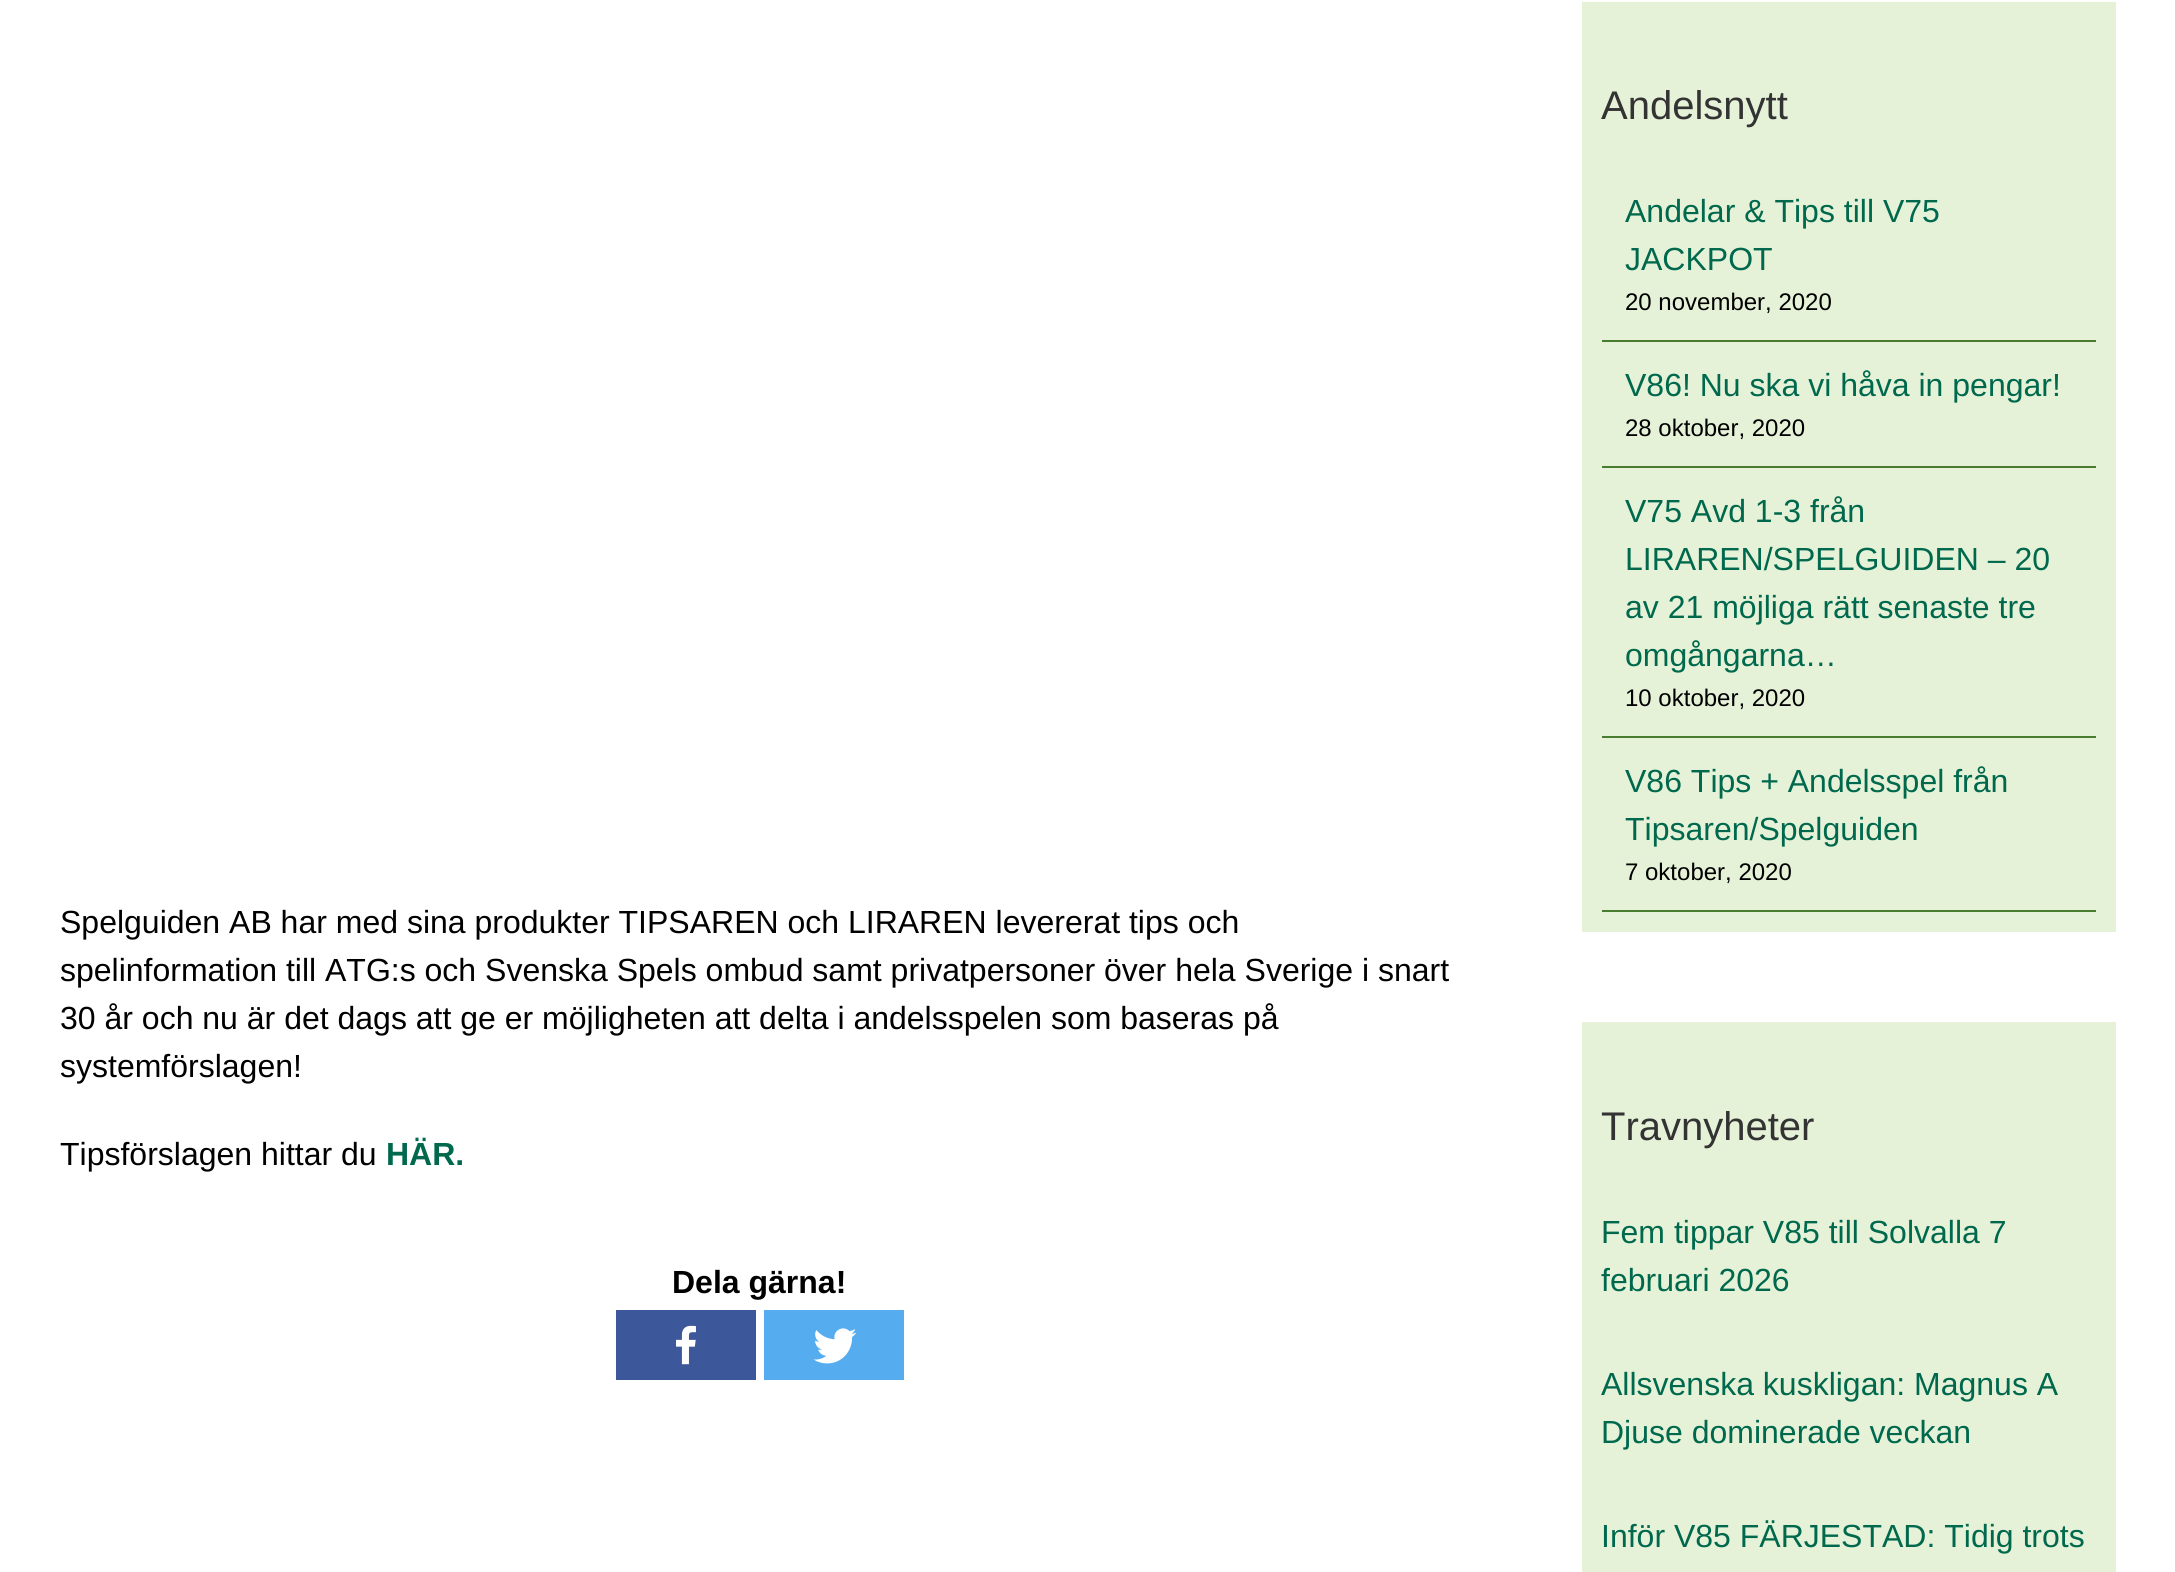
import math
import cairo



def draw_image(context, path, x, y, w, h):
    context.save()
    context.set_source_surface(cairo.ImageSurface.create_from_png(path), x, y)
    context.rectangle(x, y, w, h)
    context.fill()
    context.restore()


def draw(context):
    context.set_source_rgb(1, 1, 1)
    context.paint()
    context.set_source_rgb(60 / 255, 88 / 255, 154 / 255)
    context.rectangle(616, 1310, 140, 70)
    context.fill()
    draw_image(context, "images/1.png", 676, 1325, 20, 40)
    context.set_source_rgb(85 / 255, 172 / 255, 238 / 255)
    context.rectangle(764, 1310, 140, 70)
    context.fill()
    draw_image(context, "images/2.png", 813, 1328, 44, 36)
    context.set_source_rgb(230 / 255, 242 / 255, 216 / 255)
    context.rectangle(1582, 2, 534, 930)
    context.fill()
    context.set_source_rgb(73 / 255, 124 / 255, 47 / 255)
    context.rectangle(1602, 340, 494, 2)
    context.fill()
    context.rectangle(1602, 466, 494, 2)
    context.fill()
    context.rectangle(1602, 736, 494, 2)
    context.fill()
    context.rectangle(1602, 910, 494, 2)
    context.fill()
    context.set_source_rgb(230 / 255, 242 / 255, 216 / 255)
    context.rectangle(1582, 1022, 534, 550)
    context.fill()
    context.select_font_face("Liberation Sans")
    context.set_font_size(32)
    context.set_source_rgb(0, 0, 0)
    context.move_to(60, 933)
    context.show_text("Spelguiden AB har med sina produkter TIPSAREN och LIRAREN levererat tips och")
    context.move_to(60, 981)
    context.show_text("spelinformation till ATG:s och Svenska Spels ombud samt privatpersoner över hela Sverige i snart")
    context.move_to(60, 1029)
    context.show_text("30 år och nu är det dags att ge er möjligheten att delta i andelsspelen som baseras på")
    context.move_to(60, 1077)
    context.show_text("systemförslagen!")
    context.move_to(60, 1165)
    context.show_text("Tipsförslagen hittar du")
    context.select_font_face("Liberation Sans", cairo.FontSlant.NORMAL, cairo.FontWeight.BOLD)
    context.set_source_rgb(0, 105 / 255, 77 / 255)
    context.move_to(386, 1165)
    context.show_text("HÄR.")
    context.set_source_rgb(0, 0, 0)
    context.move_to(672, 1293)
    context.show_text("Dela gärna!")
    context.select_font_face("Liberation Sans")
    context.set_font_size(40)
    context.set_source_rgb(51 / 255, 51 / 255, 51 / 255)
    context.move_to(1601, 119)
    context.show_text("Andelsnytt")
    context.set_font_size(32)
    context.set_source_rgb(0, 105 / 255, 77 / 255)
    context.move_to(1625, 222)
    context.show_text("Andelar & Tips till V75")
    context.move_to(1625, 270)
    context.show_text("JACKPOT")
    context.set_font_size(24)
    context.set_source_rgb(0, 0, 0)
    context.move_to(1625, 310)
    context.show_text("20 november, 2020")
    context.set_font_size(32)
    context.set_source_rgb(0, 105 / 255, 77 / 255)
    context.move_to(1625, 396)
    context.show_text("V86! Nu ska vi håva in pengar!")
    context.set_font_size(24)
    context.set_source_rgb(0, 0, 0)
    context.move_to(1625, 436)
    context.show_text("28 oktober, 2020")
    context.set_font_size(32)
    context.set_source_rgb(0, 105 / 255, 77 / 255)
    context.move_to(1625, 522)
    context.show_text("V75 Avd 1-3 från")
    context.move_to(1625, 570)
    context.show_text("LIRAREN/SPELGUIDEN – 20")
    context.move_to(1625, 618)
    context.show_text("av 21 möjliga rätt senaste tre")
    context.move_to(1625, 666)
    context.show_text("omgångarna…")
    context.set_font_size(24)
    context.set_source_rgb(0, 0, 0)
    context.move_to(1625, 706)
    context.show_text("10 oktober, 2020")
    context.set_font_size(32)
    context.set_source_rgb(0, 105 / 255, 77 / 255)
    context.move_to(1625, 792)
    context.show_text("V86 Tips + Andelsspel från")
    context.move_to(1625, 840)
    context.show_text("Tipsaren/Spelguiden")
    context.set_font_size(24)
    context.set_source_rgb(0, 0, 0)
    context.move_to(1625, 880)
    context.show_text("7 oktober, 2020")
    context.set_font_size(40)
    context.set_source_rgb(51 / 255, 51 / 255, 51 / 255)
    context.move_to(1601, 1140)
    context.show_text("Travnyheter")
    context.set_font_size(32)
    context.set_source_rgb(0, 105 / 255, 77 / 255)
    context.move_to(1601, 1243)
    context.show_text("Fem tippar V85 till Solvalla 7")
    context.move_to(1601, 1291)
    context.show_text("februari 2026")
    context.move_to(1601, 1395)
    context.show_text("Allsvenska kuskligan: Magnus A")
    context.move_to(1601, 1443)
    context.show_text("Djuse dominerade veckan")
    context.move_to(1601, 1547)
    context.show_text("Inför V85 FÄRJESTAD: Tidig trots")


surface = cairo.ImageSurface(cairo.Format.RGB24, 2175, 1572)
context = cairo.Context(surface)
options = cairo.FontOptions()
options.set_hint_metrics(cairo.HintMetrics.OFF)
options.set_hint_style(cairo.HintStyle.NONE)
context.set_font_options(options)
context.set_miter_limit(4)
draw(context)
surface.write_to_png("out.png")
